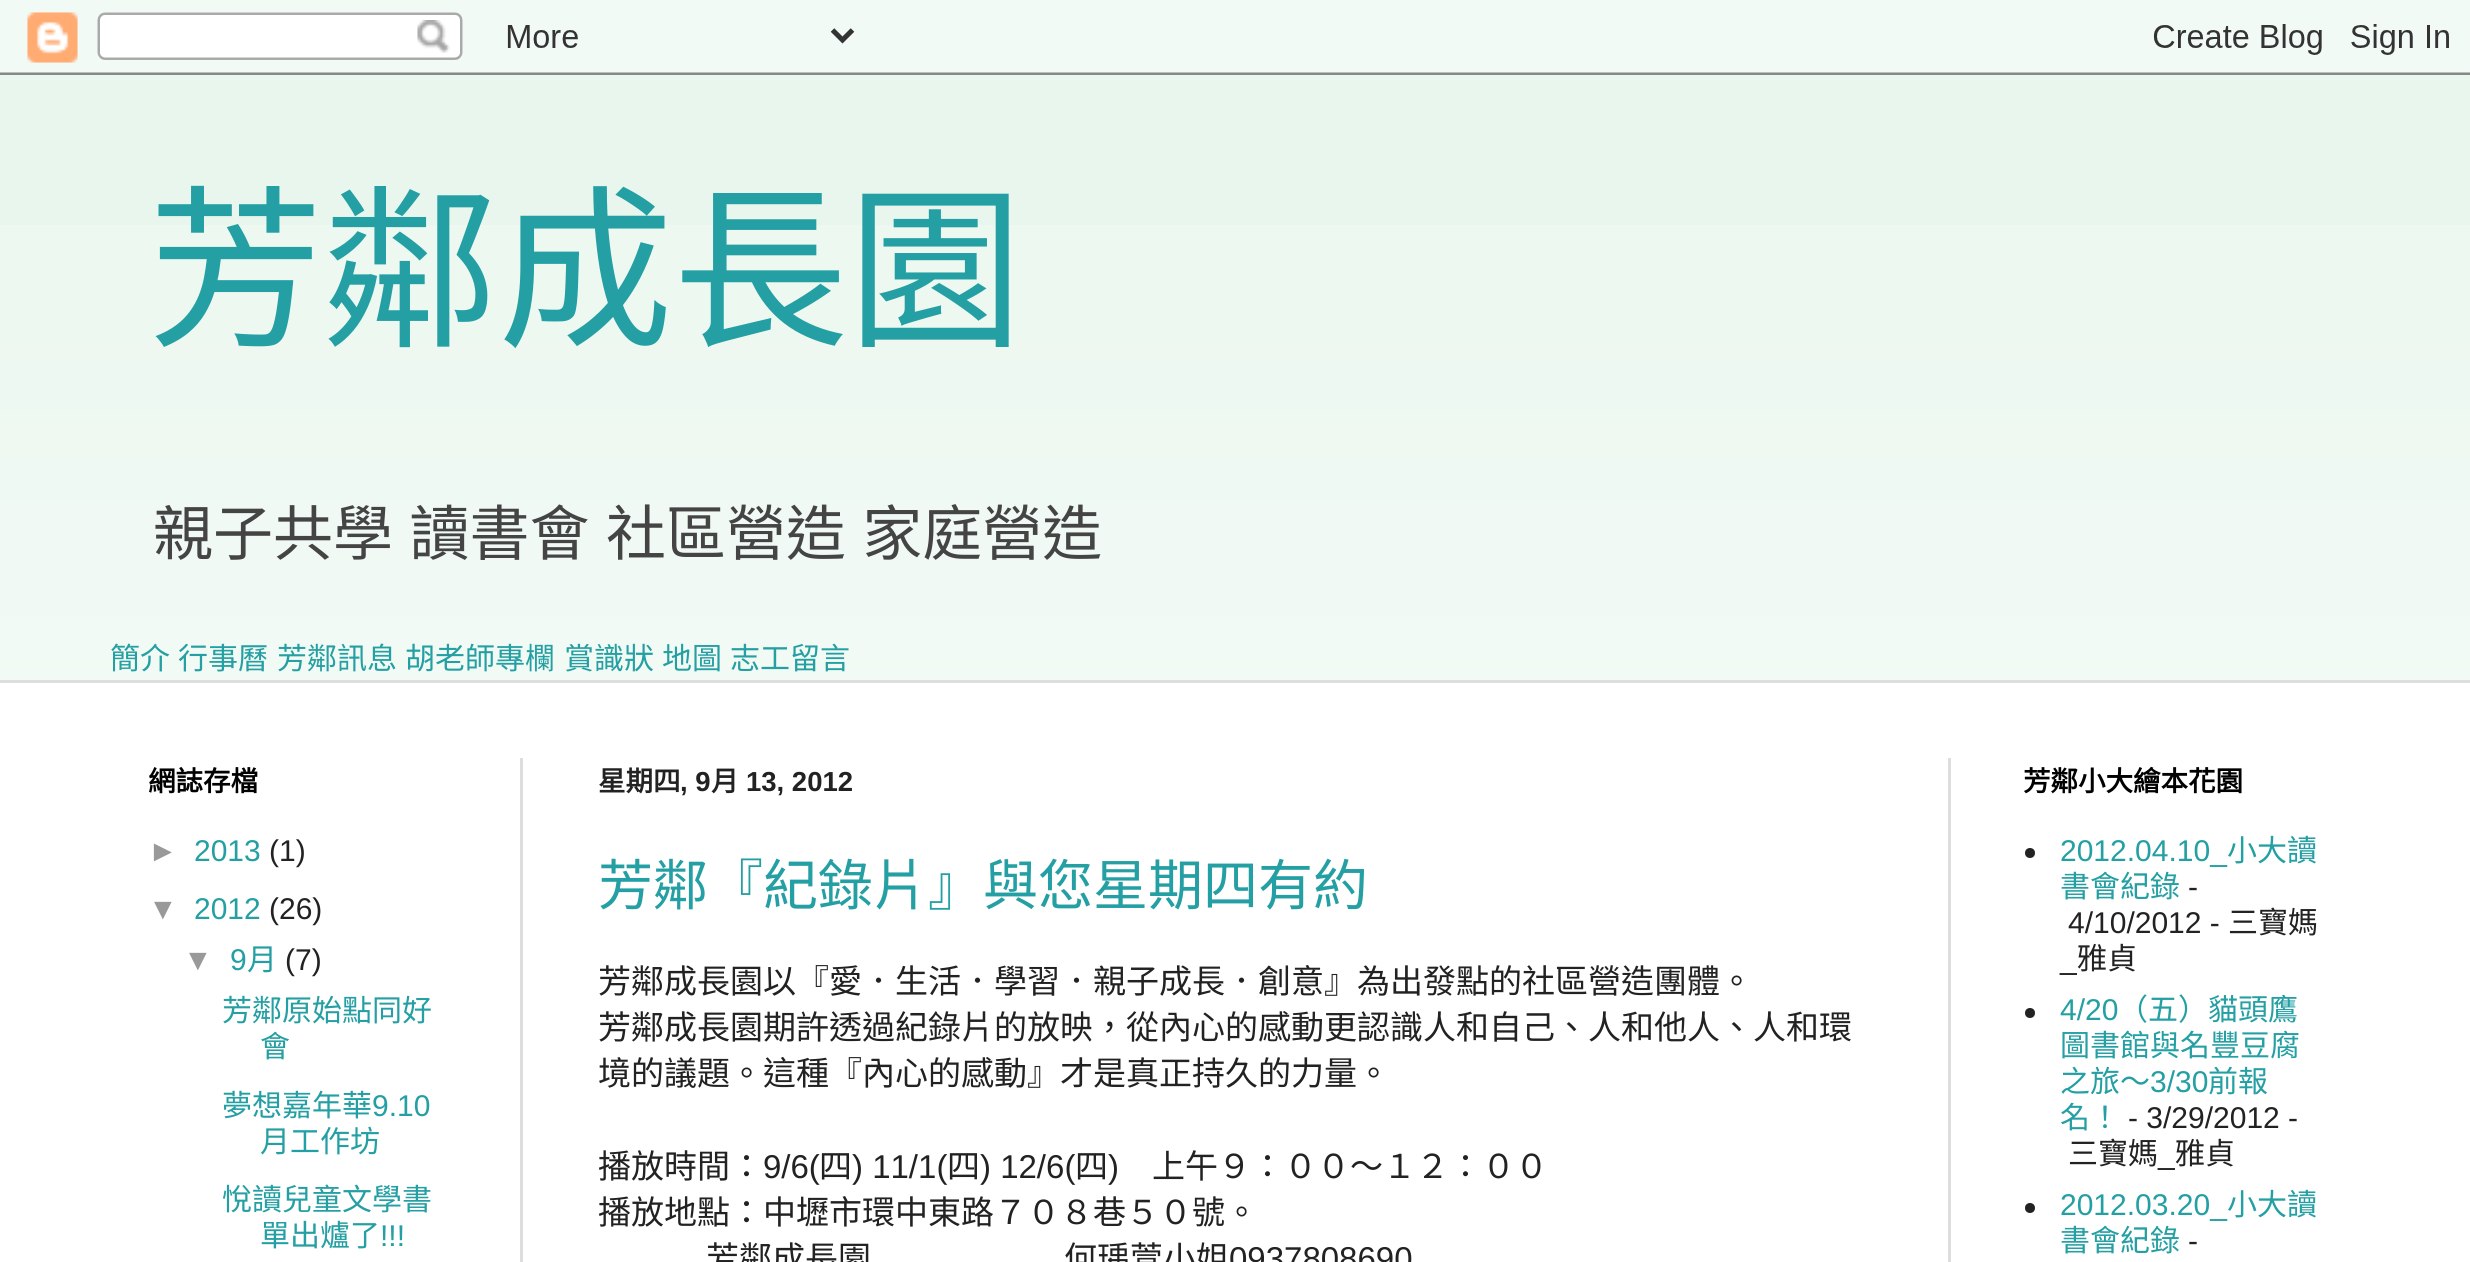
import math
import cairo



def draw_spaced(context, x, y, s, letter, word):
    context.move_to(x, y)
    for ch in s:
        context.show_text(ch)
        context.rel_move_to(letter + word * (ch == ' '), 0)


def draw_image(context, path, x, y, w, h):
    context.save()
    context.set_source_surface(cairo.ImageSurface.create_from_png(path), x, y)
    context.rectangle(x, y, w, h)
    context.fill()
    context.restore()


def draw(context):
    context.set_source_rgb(232 / 255, 246 / 255, 237 / 255)
    context.paint()
    draw_image(context, "images/1.png", 0, 0, 2470, 75)
    context.set_source_rgb(1, 1, 1)
    context.rectangle(0, 683, 2470, 579)
    context.fill()
    context.set_source_rgb(221 / 255, 221 / 255, 221 / 255)
    context.rectangle(0, 680, 2470, 3)
    context.fill()
    context.rectangle(520, 758, 3, 504)
    context.fill()
    context.rectangle(1948, 758, 3, 504)
    context.fill()
    context.set_source_rgb(34 / 255, 34 / 255, 34 / 255)
    context.arc(2030, 853, 5, 0, 2 * math.pi)
    context.fill()
    context.arc(2030, 1013, 5, 0, 2 * math.pi)
    context.fill()
    context.arc(2030, 1208, 5, 0, 2 * math.pi)
    context.fill()
    draw_image(context, "images/2.png", 0, 225, 2470, 455)
    context.select_font_face("Noto Sans CJK TC")
    context.set_font_size(175)
    context.set_source_rgb(36 / 255, 159 / 255, 163 / 255)
    context.move_to(148, 333)
    context.show_text("芳鄰成長園")
    context.set_font_size(60)
    context.set_source_rgb(68 / 255, 68 / 255, 68 / 255)
    draw_spaced(context, 153, 555, "親子共學 讀書會 社區營造 家庭營造", 0, 3)
    context.set_font_size(30)
    context.set_source_rgb(36 / 255, 159 / 255, 163 / 255)
    context.move_to(110, 669)
    context.show_text("簡介")
    context.move_to(178, 669)
    context.show_text("行事曆")
    context.move_to(277, 669)
    context.show_text("芳鄰訊息")
    context.move_to(405, 669)
    context.show_text("胡老師專欄")
    context.move_to(564, 669)
    context.show_text("賞識狀")
    context.move_to(662, 669)
    context.show_text("地圖")
    context.move_to(730, 669)
    context.show_text("志工留言")
    context.select_font_face("Noto Sans CJK TC", cairo.FontSlant.NORMAL, cairo.FontWeight.BOLD)
    context.set_font_size(27.5)
    context.set_source_rgb(0, 0, 0)
    context.move_to(148, 791)
    context.show_text("網誌存檔")
    context.select_font_face("Liberation Sans")
    context.set_font_size(30)
    context.set_source_rgb(153 / 255, 153 / 255, 153 / 255)
    context.move_to(148, 861)
    context.show_text("►")
    context.set_source_rgb(36 / 255, 159 / 255, 163 / 255)
    context.move_to(194, 861)
    context.show_text("2013")
    context.set_source_rgb(34 / 255, 34 / 255, 34 / 255)
    context.move_to(269, 861)
    context.show_text("(1)")
    context.set_source_rgb(153 / 255, 153 / 255, 153 / 255)
    context.move_to(148, 919)
    context.show_text("▼")
    context.set_source_rgb(36 / 255, 159 / 255, 163 / 255)
    context.move_to(194, 919)
    context.show_text("2012")
    context.set_source_rgb(34 / 255, 34 / 255, 34 / 255)
    context.move_to(269, 919)
    context.show_text("(26)")
    context.set_source_rgb(153 / 255, 153 / 255, 153 / 255)
    context.move_to(183, 970)
    context.show_text("▼")
    context.set_source_rgb(36 / 255, 159 / 255, 163 / 255)
    context.move_to(230, 970)
    context.show_text("9")
    context.select_font_face("Noto Sans CJK TC")
    context.move_to(247, 970)
    context.show_text("月")
    context.select_font_face("Liberation Sans")
    context.set_source_rgb(34 / 255, 34 / 255, 34 / 255)
    context.move_to(285, 970)
    context.show_text("(7)")
    context.select_font_face("Noto Sans CJK TC")
    context.set_source_rgb(36 / 255, 159 / 255, 163 / 255)
    context.move_to(222, 1021)
    context.show_text("芳鄰原始點同好")
    context.move_to(260, 1057)
    context.show_text("會")
    context.move_to(222, 1116)
    context.show_text("夢想嘉年華")
    context.select_font_face("Liberation Sans")
    context.move_to(372, 1116)
    context.show_text("9.10")
    context.select_font_face("Noto Sans CJK TC")
    context.move_to(260, 1152)
    context.show_text("月工作坊")
    context.move_to(222, 1210)
    context.show_text("悅讀兒童文學書")
    context.move_to(260, 1246)
    context.show_text("單出爐了")
    context.select_font_face("Liberation Sans")
    context.move_to(380, 1246)
    context.show_text("!!!")
    context.select_font_face("Noto Sans CJK TC", cairo.FontSlant.NORMAL, cairo.FontWeight.BOLD)
    context.set_font_size(27.5)
    context.set_source_rgb(34 / 255, 34 / 255, 34 / 255)
    context.move_to(598, 791)
    context.show_text("星期四")
    context.select_font_face("Liberation Sans", cairo.FontSlant.NORMAL, cairo.FontWeight.BOLD)
    context.move_to(680, 791)
    context.show_text(", 9")
    context.select_font_face("Noto Sans CJK TC", cairo.FontSlant.NORMAL, cairo.FontWeight.BOLD)
    context.move_to(711, 791)
    context.show_text("月")
    context.select_font_face("Liberation Sans", cairo.FontSlant.NORMAL, cairo.FontWeight.BOLD)
    context.move_to(746, 791)
    context.show_text("13, 2012")
    context.select_font_face("Noto Sans CJK TC")
    context.set_font_size(55)
    context.set_source_rgb(36 / 255, 159 / 255, 163 / 255)
    context.move_to(598, 905)
    context.show_text("芳鄰『紀錄片』與您星期四有約")
    context.set_font_size(33)
    context.set_source_rgb(34 / 255, 34 / 255, 34 / 255)
    context.move_to(598, 993)
    context.show_text("芳鄰成長園以『愛．生活．學習．親子成長．創意』為出發點的社區營造團體。")
    context.move_to(598, 1039)
    context.show_text("芳鄰成長園期許透過紀錄片的放映，從內心的感動更認識人和自己、人和他人、人和環")
    context.move_to(598, 1085)
    context.show_text("境的議題。這種『內心的感動』才是真正持久的力量。")
    context.move_to(598, 1178)
    context.show_text("播放時間：")
    context.select_font_face("Liberation Sans")
    context.move_to(763, 1178)
    context.show_text("9/6(")
    context.select_font_face("Noto Sans CJK TC")
    context.move_to(819, 1178)
    context.show_text("四")
    context.select_font_face("Liberation Sans")
    context.move_to(852, 1178)
    context.show_text(") 11/1(")
    context.select_font_face("Noto Sans CJK TC")
    context.move_to(947, 1178)
    context.show_text("四")
    context.select_font_face("Liberation Sans")
    context.move_to(980, 1178)
    context.show_text(") 12/6(")
    context.select_font_face("Noto Sans CJK TC")
    context.move_to(1075, 1178)
    context.show_text("四")
    context.select_font_face("Liberation Sans")
    context.move_to(1108, 1178)
    context.show_text(")")
    context.select_font_face("Noto Sans CJK TC")
    context.move_to(1152, 1178)
    context.show_text("上午９：００～１２：００")
    context.move_to(598, 1224)
    context.show_text("播放地點：中壢市環中東路７０８巷５０號。")
    context.move_to(706, 1270)
    context.show_text("芳鄰成長園")
    context.move_to(1064, 1270)
    context.show_text("何瑀萱小姐")
    context.select_font_face("Liberation Sans")
    context.move_to(1229, 1270)
    context.show_text("0937808690")
    context.select_font_face("Noto Sans CJK TC", cairo.FontSlant.NORMAL, cairo.FontWeight.BOLD)
    context.set_font_size(27.5)
    context.set_source_rgb(0, 0, 0)
    context.move_to(2023, 791)
    context.show_text("芳鄰小大繪本花園")
    context.select_font_face("Liberation Sans")
    context.set_font_size(30)
    context.set_source_rgb(36 / 255, 159 / 255, 163 / 255)
    context.move_to(2060, 861)
    context.show_text("2012.04.10_")
    context.select_font_face("Noto Sans CJK TC")
    context.move_to(2227, 861)
    context.show_text("小大讀")
    context.move_to(2060, 897)
    context.show_text("書會紀錄")
    context.select_font_face("Liberation Sans")
    context.set_source_rgb(34 / 255, 34 / 255, 34 / 255)
    context.move_to(2188, 897)
    context.show_text("-")
    context.move_to(2068, 933)
    context.show_text("4/10/2012 -")
    context.select_font_face("Noto Sans CJK TC")
    context.move_to(2228, 933)
    context.show_text("三寶媽")
    context.move_to(2077, 969)
    context.show_text("雅貞")
    context.select_font_face("Liberation Sans")
    context.move_to(2060, 969)
    context.show_text("_")
    context.set_source_rgb(36 / 255, 159 / 255, 163 / 255)
    context.move_to(2060, 1020)
    context.show_text("4/20")
    context.select_font_face("Noto Sans CJK TC")
    context.move_to(2118, 1020)
    context.show_text("（五）貓頭鷹")
    context.move_to(2060, 1056)
    context.show_text("圖書館與名豐豆腐")
    context.move_to(2060, 1092)
    context.show_text("之旅～")
    context.select_font_face("Liberation Sans")
    context.move_to(2150, 1092)
    context.show_text("3/30")
    context.select_font_face("Noto Sans CJK TC")
    context.move_to(2208, 1092)
    context.show_text("前報")
    context.move_to(2060, 1128)
    context.show_text("名！")
    context.select_font_face("Liberation Sans")
    context.set_source_rgb(34 / 255, 34 / 255, 34 / 255)
    context.move_to(2128, 1128)
    context.show_text("- 3/29/2012 -")
    context.select_font_face("Noto Sans CJK TC")
    context.move_to(2068, 1164)
    context.show_text("三寶媽")
    context.move_to(2175, 1164)
    context.show_text("雅貞")
    context.select_font_face("Liberation Sans")
    context.move_to(2158, 1164)
    context.show_text("_")
    context.set_source_rgb(36 / 255, 159 / 255, 163 / 255)
    context.move_to(2060, 1215)
    context.show_text("2012.03.20_")
    context.select_font_face("Noto Sans CJK TC")
    context.move_to(2227, 1215)
    context.show_text("小大讀")
    context.move_to(2060, 1251)
    context.show_text("書會紀錄")
    context.select_font_face("Liberation Sans")
    context.set_source_rgb(34 / 255, 34 / 255, 34 / 255)
    context.move_to(2188, 1251)
    context.show_text("-")


surface = cairo.ImageSurface(cairo.Format.RGB24, 2470, 1262)
context = cairo.Context(surface)
options = cairo.FontOptions()
options.set_hint_metrics(cairo.HintMetrics.OFF)
options.set_hint_style(cairo.HintStyle.NONE)
context.set_font_options(options)
context.set_miter_limit(4)
draw(context)
surface.write_to_png("out.png")
